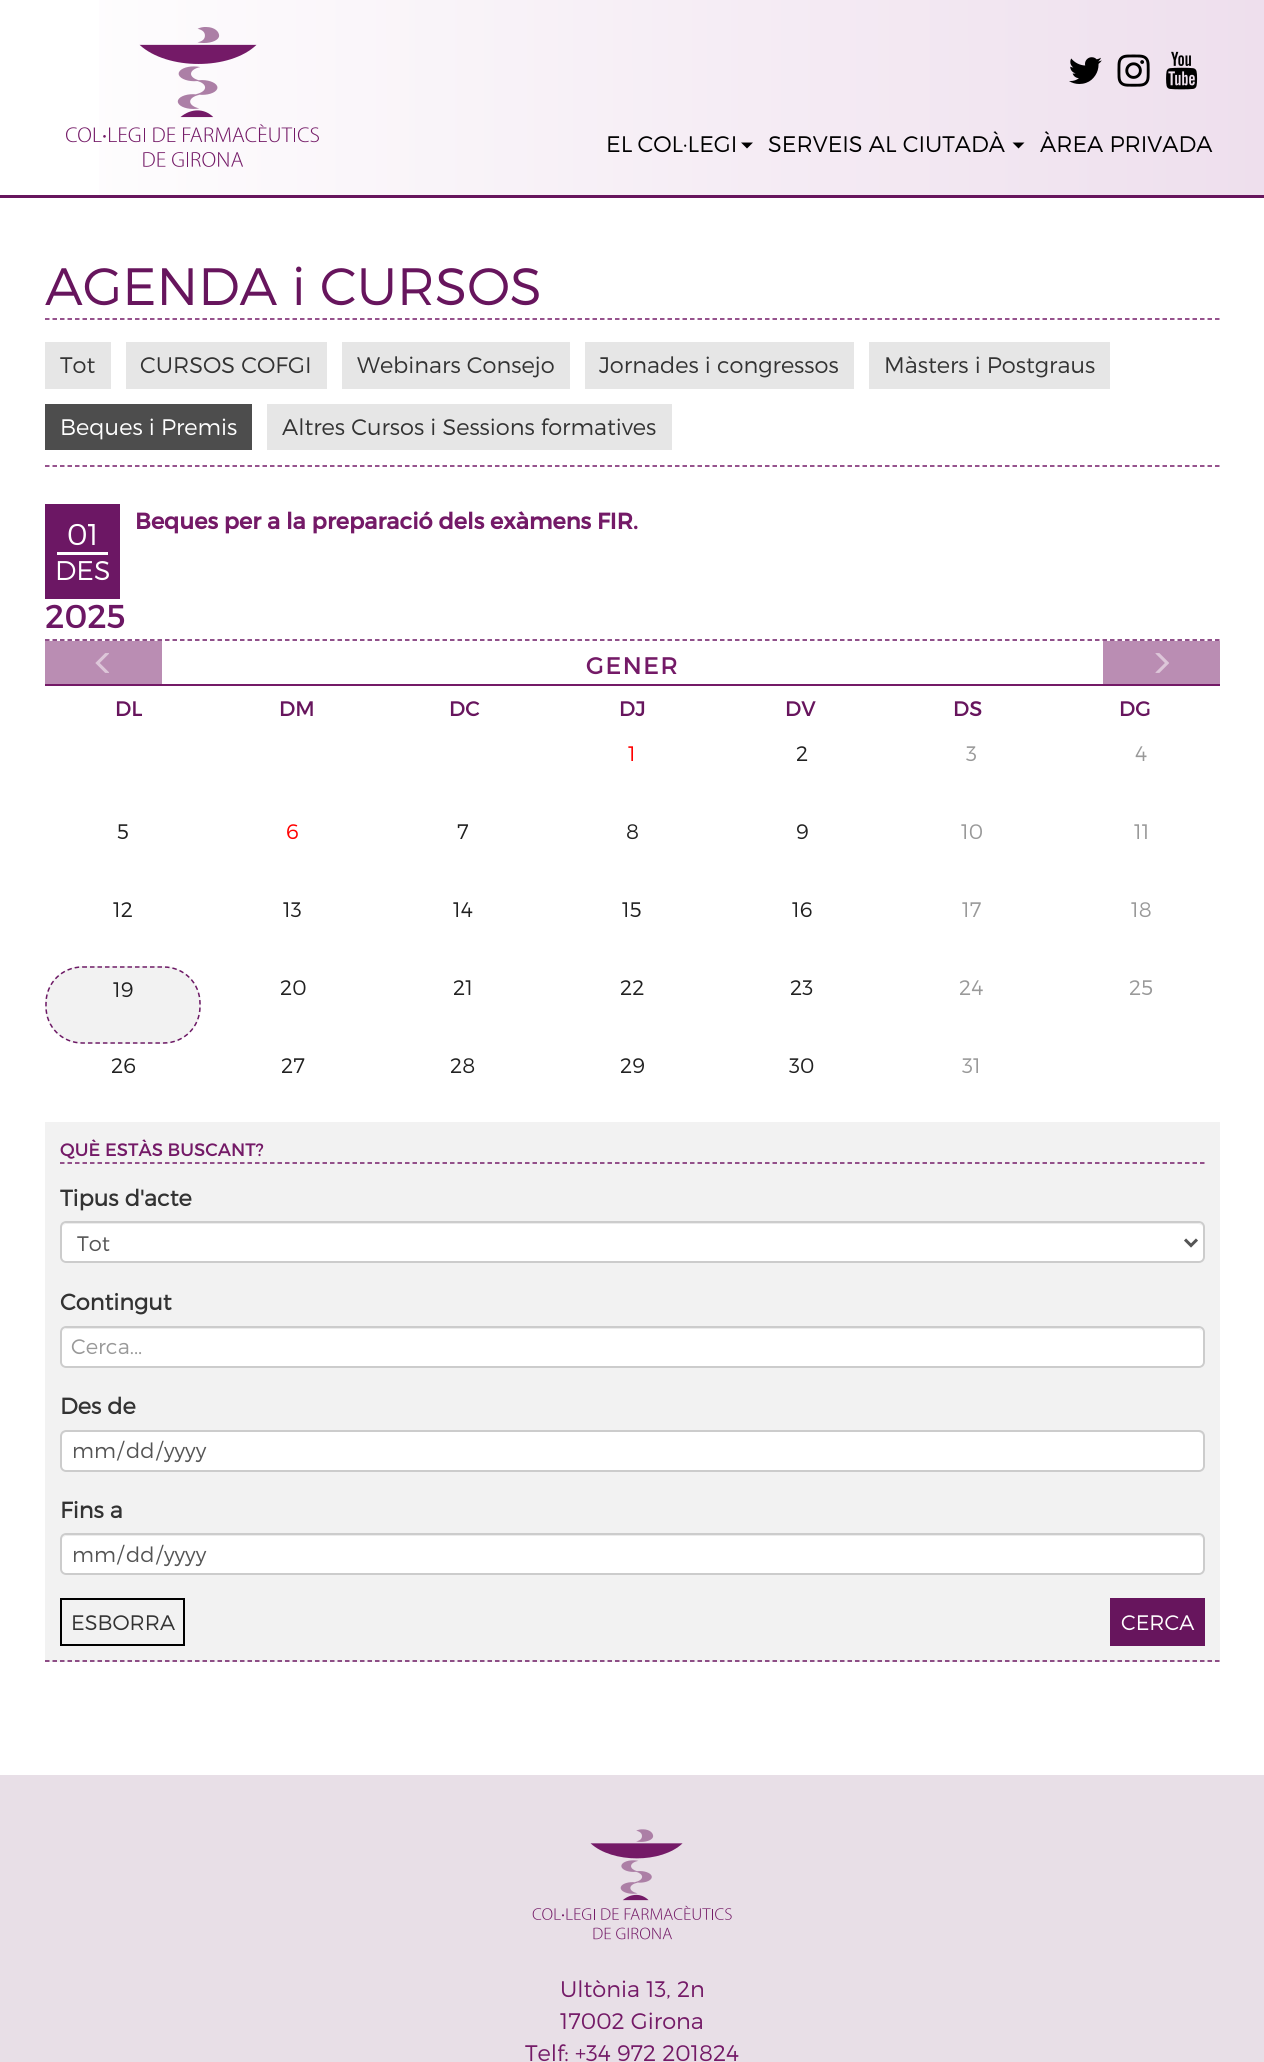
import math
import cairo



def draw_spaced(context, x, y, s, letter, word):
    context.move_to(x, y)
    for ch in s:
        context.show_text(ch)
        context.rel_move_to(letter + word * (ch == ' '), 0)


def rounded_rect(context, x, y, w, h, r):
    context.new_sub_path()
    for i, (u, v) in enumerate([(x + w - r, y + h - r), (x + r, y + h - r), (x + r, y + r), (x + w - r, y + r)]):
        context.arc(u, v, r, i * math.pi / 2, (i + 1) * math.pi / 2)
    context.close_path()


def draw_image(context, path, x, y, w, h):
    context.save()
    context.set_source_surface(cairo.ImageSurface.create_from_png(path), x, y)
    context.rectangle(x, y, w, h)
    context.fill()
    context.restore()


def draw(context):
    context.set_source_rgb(1, 1, 1)
    context.paint()
    gradient = cairo.LinearGradient(0, 98, 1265, 97)
    gradient.add_color_stop_rgba(0, 1, 1, 1, 1)
    gradient.add_color_stop_rgba(1, 238 / 255, 223 / 255, 237 / 255, 1)
    context.set_source(gradient)
    context.rectangle(99, 0, 1165, 195)
    context.fill()
    context.set_source_rgb(103 / 255, 21 / 255, 93 / 255)
    context.rectangle(0, 195, 1264, 3)
    context.fill()
    draw_image(context, "images/1.png", 66, 27, 253, 140)
    draw_image(context, "images/2.png", 1069, 57, 33, 27)
    draw_image(context, "images/3.png", 1117, 54, 33, 33)
    draw_image(context, "images/4.png", 1166, 51, 32, 39)
    context.set_source_rgb(0, 0, 0)
    context.new_path()
    context.move_to(741, 142.5)
    context.line_to(753, 142.5)
    context.line_to(747, 148.5)
    context.close_path()
    context.fill()
    context.new_path()
    context.move_to(1012.5, 142.5)
    context.line_to(1024.5, 142.5)
    context.line_to(1018.5, 148.5)
    context.close_path()
    context.fill()
    context.new_path()
    context.move_to(45, 319)
    context.line_to(1219.5, 319)
    context.set_source_rgb(116 / 255, 26 / 255, 103 / 255)
    context.set_line_width(1.5)
    context.set_dash([4.5, 3])
    context.stroke()
    context.new_path()
    context.move_to(45, 466)
    context.line_to(1219.5, 466)
    context.stroke()
    context.set_source_rgb(230 / 255, 230 / 255, 230 / 255)
    context.rectangle(45, 342, 66, 47)
    context.fill()
    context.rectangle(126, 342, 201, 47)
    context.fill()
    context.rectangle(342, 342, 228, 47)
    context.fill()
    context.rectangle(585, 342, 269, 47)
    context.fill()
    context.rectangle(869, 342, 241, 47)
    context.fill()
    context.set_source_rgb(77 / 255, 77 / 255, 77 / 255)
    context.rectangle(45, 404, 207, 46)
    context.fill()
    context.set_source_rgb(230 / 255, 230 / 255, 230 / 255)
    context.rectangle(267, 404, 405, 46)
    context.fill()
    context.new_path()
    context.move_to(45, 640)
    context.line_to(1219.5, 640)
    context.set_source_rgb(108 / 255, 23 / 255, 100 / 255)
    context.stroke()
    context.rectangle(45, 504, 75, 95)
    context.fill()
    context.set_source_rgb(1, 1, 1)
    context.rectangle(57, 552, 51, 3)
    context.fill()
    context.set_source_rgb(116 / 255, 26 / 255, 103 / 255)
    context.rectangle(45, 684, 1175, 2)
    context.fill()
    context.set_source_rgb(186 / 255, 141 / 255, 179 / 255)
    context.rectangle(45, 641, 117, 43)
    context.fill()
    draw_image(context, "images/5.png", 95, 653, 14, 20)
    context.rectangle(1103, 641, 117, 43)
    context.fill()
    draw_image(context, "images/6.png", 1155, 653, 14, 20)
    context.set_source_rgb(242 / 255, 242 / 255, 242 / 255)
    rounded_rect(context, 45, 966, 156, 78, 38)
    context.fill()
    context.new_path()
    context.move_to(82.5, 967)
    context.line_to(163.5, 967)
    context.curve_to(184, 967, 200, 983, 200, 1003.5)
    context.line_to(200, 1006.5)
    context.curve_to(200, 1027, 184, 1043, 163.5, 1043)
    context.line_to(82.5, 1043)
    context.curve_to(62, 1043, 46, 1027, 46, 1006.5)
    context.line_to(46, 1003.5)
    context.curve_to(46, 983, 62, 967, 82.5, 967)
    context.close_path()
    context.set_source_rgb(108 / 255, 23 / 255, 100 / 255)
    context.stroke()
    context.set_source_rgb(242 / 255, 242 / 255, 242 / 255)
    context.rectangle(45, 1122, 1175, 540)
    context.fill()
    context.new_path()
    context.move_to(45, 1661)
    context.line_to(1219.5, 1661)
    context.set_source_rgb(108 / 255, 23 / 255, 97 / 255)
    context.stroke()
    context.new_path()
    context.move_to(60, 1163)
    context.line_to(1204.5, 1163)
    context.set_source_rgb(116 / 255, 26 / 255, 103 / 255)
    context.stroke()
    context.set_source_rgb(1, 1, 1)
    rounded_rect(context, 60, 1221, 1145, 42, 6)
    context.fill()
    context.set_source_rgb(236 / 255, 236 / 255, 236 / 255)
    context.new_path()
    context.move_to(66, 1224)
    context.line_to(1198, 1224)
    context.curve_to(1201, 1224, 1203, 1226, 1203, 1228)
    context.curve_to(1203, 1225, 1201, 1223, 1198, 1223)
    context.line_to(67, 1223)
    context.curve_to(64, 1223, 62, 1225, 62, 1228)
    context.curve_to(62, 1226, 64, 1224, 66, 1224)
    context.close_path()
    context.fill()
    rounded_rect(context, 61, 1222, 1143, 40, 5)
    context.set_source_rgb(204 / 255, 204 / 255, 204 / 255)
    context.set_line_width(2)
    context.set_dash([])
    context.stroke()
    context.new_path()
    context.move_to(1185, 1239.5)
    context.line_to(1191, 1245.5)
    context.line_to(1197, 1239.5)
    context.set_source_rgb(85 / 255, 85 / 255, 85 / 255)
    context.set_line_width(3)
    context.stroke()
    context.set_source_rgb(1, 1, 1)
    rounded_rect(context, 60, 1326, 1145, 42, 6)
    context.fill()
    context.set_source_rgb(236 / 255, 236 / 255, 236 / 255)
    context.new_path()
    context.move_to(66, 1329)
    context.line_to(1198, 1329)
    context.curve_to(1201, 1329, 1203, 1331, 1203, 1334)
    context.curve_to(1203, 1331, 1201, 1328, 1198, 1328)
    context.line_to(67, 1328)
    context.curve_to(64, 1328, 62, 1331, 62, 1334)
    context.curve_to(62, 1331, 64, 1329, 66, 1329)
    context.close_path()
    context.fill()
    rounded_rect(context, 61, 1327, 1143, 40, 5)
    context.set_source_rgb(204 / 255, 204 / 255, 204 / 255)
    context.set_line_width(2)
    context.stroke()
    context.set_source_rgb(1, 1, 1)
    rounded_rect(context, 60, 1430, 1145, 42, 6)
    context.fill()
    context.set_source_rgb(236 / 255, 236 / 255, 236 / 255)
    context.new_path()
    context.move_to(66, 1432)
    context.line_to(1198, 1432)
    context.curve_to(1201, 1432, 1203, 1435, 1203, 1437)
    context.curve_to(1203, 1434, 1201, 1431, 1198, 1431)
    context.line_to(67, 1431)
    context.curve_to(64, 1431, 62, 1434, 62, 1437)
    context.curve_to(62, 1435, 64, 1432, 66, 1432)
    context.close_path()
    context.fill()
    rounded_rect(context, 61, 1431, 1143, 40, 5)
    context.set_source_rgb(204 / 255, 204 / 255, 204 / 255)
    context.stroke()
    context.set_source_rgb(1, 1, 1)
    rounded_rect(context, 60, 1533, 1145, 42, 6)
    context.fill()
    context.set_source_rgb(236 / 255, 236 / 255, 236 / 255)
    context.new_path()
    context.move_to(66, 1536)
    context.line_to(1198, 1536)
    context.curve_to(1201, 1536, 1203, 1538, 1203, 1540)
    context.curve_to(1203, 1537, 1201, 1535, 1198, 1535)
    context.line_to(67, 1535)
    context.curve_to(64, 1535, 62, 1537, 62, 1540)
    context.curve_to(62, 1538, 64, 1536, 66, 1536)
    context.close_path()
    context.fill()
    rounded_rect(context, 61, 1534, 1143, 40, 5)
    context.set_source_rgb(204 / 255, 204 / 255, 204 / 255)
    context.stroke()
    context.rectangle(61, 1599, 123, 46)
    context.set_source_rgb(0, 0, 0)
    context.stroke()
    context.set_source_rgb(103 / 255, 21 / 255, 93 / 255)
    context.rectangle(1110, 1598, 95, 48)
    context.fill()
    context.set_source_rgb(232 / 255, 223 / 255, 231 / 255)
    context.rectangle(0, 1775, 1264, 287)
    context.fill()
    draw_image(context, "images/7.png", 532, 1829, 200, 111)
    context.select_font_face("Montserrat Light")
    context.set_font_size(22.5)
    context.set_source_rgb(0, 0, 0)
    draw_spaced(context, 606, 152, "EL COL·LEGI", 0, -1)
    context.move_to(768, 152)
    context.show_text("SERVEIS AL CIUTADÀ")
    context.move_to(1040, 152)
    context.show_text("ÀREA PRIVADA")
    context.set_font_size(52.5)
    context.set_source_rgb(103 / 255, 21 / 255, 93 / 255)
    context.move_to(45, 305)
    context.show_text("AGENDA i CURSOS")
    context.set_font_size(22.5)
    context.set_source_rgb(51 / 255, 51 / 255, 51 / 255)
    context.move_to(60, 373)
    context.show_text("Tot")
    context.move_to(140, 373)
    context.show_text("CURSOS COFGI")
    context.move_to(357, 373)
    context.show_text("Webinars Consejo")
    context.move_to(599, 373)
    context.show_text("Jornades i congressos")
    context.move_to(884, 373)
    context.show_text("Màsters i Postgraus")
    context.set_source_rgb(1, 1, 1)
    context.move_to(60, 435)
    context.show_text("Beques i Premis")
    context.set_source_rgb(51 / 255, 51 / 255, 51 / 255)
    context.move_to(282, 435)
    context.show_text("Altres Cursos i Sessions formatives")
    context.set_font_size(30)
    context.set_source_rgb(1, 1, 1)
    context.move_to(67, 545)
    context.show_text("01")
    context.set_font_size(27)
    context.move_to(55, 580)
    context.show_text("DES")
    context.select_font_face("Montserrat")
    context.set_font_size(33)
    context.set_source_rgb(108 / 255, 23 / 255, 100 / 255)
    context.move_to(45, 628)
    context.show_text("2025")
    context.select_font_face("Montserrat", cairo.FontSlant.NORMAL, cairo.FontWeight.BOLD)
    context.set_font_size(22.5)
    context.set_source_rgb(116 / 255, 26 / 255, 103 / 255)
    context.move_to(135, 529)
    context.show_text("Beques per a la preparació dels exàmens FIR.")
    context.select_font_face("Montserrat")
    context.set_font_size(24)
    draw_spaced(context, 586, 674, "GENER", 1.5, 0)
    context.set_font_size(21)
    context.set_source_rgb(103 / 255, 21 / 255, 93 / 255)
    context.move_to(115, 716)
    context.show_text("DL")
    context.move_to(279, 716)
    context.show_text("DM")
    context.move_to(449, 716)
    context.show_text("DC")
    context.move_to(619, 716)
    context.show_text("DJ")
    context.move_to(785, 716)
    context.show_text("DV")
    context.move_to(953, 716)
    context.show_text("DS")
    context.move_to(1119, 716)
    context.show_text("DG")
    context.select_font_face("Montserrat Light")
    context.set_source_rgb(1, 0, 0)
    context.move_to(628, 761)
    context.show_text("1")
    context.set_source_rgb(33 / 255, 33 / 255, 33 / 255)
    context.move_to(796, 761)
    context.show_text("2")
    context.set_source_rgb(153 / 255, 153 / 255, 153 / 255)
    context.move_to(966, 761)
    context.show_text("3")
    context.move_to(1135, 761)
    context.show_text("4")
    context.set_source_rgb(33 / 255, 33 / 255, 33 / 255)
    context.move_to(117, 839)
    context.show_text("5")
    context.set_source_rgb(1, 0, 0)
    context.move_to(286, 839)
    context.show_text("6")
    context.set_source_rgb(33 / 255, 33 / 255, 33 / 255)
    context.move_to(457, 839)
    context.show_text("7")
    context.move_to(626, 839)
    context.show_text("8")
    context.move_to(796, 839)
    context.show_text("9")
    context.set_source_rgb(153 / 255, 153 / 255, 153 / 255)
    context.move_to(961, 839)
    context.show_text("10")
    context.move_to(1134, 839)
    context.show_text("11")
    context.set_source_rgb(33 / 255, 33 / 255, 33 / 255)
    context.move_to(113, 917)
    context.show_text("12")
    context.move_to(283, 917)
    context.show_text("13")
    context.move_to(453, 917)
    context.show_text("14")
    context.move_to(622, 917)
    context.show_text("15")
    context.move_to(792, 917)
    context.show_text("16")
    context.set_source_rgb(153 / 255, 153 / 255, 153 / 255)
    context.move_to(962, 917)
    context.show_text("17")
    context.move_to(1131, 917)
    context.show_text("18")
    context.set_source_rgb(33 / 255, 33 / 255, 33 / 255)
    context.move_to(113, 997)
    context.show_text("19")
    context.move_to(280, 995)
    context.show_text("20")
    context.move_to(453, 995)
    context.show_text("21")
    context.move_to(620, 995)
    context.show_text("22")
    context.move_to(790, 995)
    context.show_text("23")
    context.set_source_rgb(153 / 255, 153 / 255, 153 / 255)
    context.move_to(959, 995)
    context.show_text("24")
    context.move_to(1129, 995)
    context.show_text("25")
    context.set_source_rgb(33 / 255, 33 / 255, 33 / 255)
    context.move_to(111, 1073)
    context.show_text("26")
    context.move_to(281, 1073)
    context.show_text("27")
    context.move_to(450, 1073)
    context.show_text("28")
    context.move_to(620, 1073)
    context.show_text("29")
    context.move_to(789, 1073)
    context.show_text("30")
    context.set_source_rgb(153 / 255, 153 / 255, 153 / 255)
    context.move_to(962, 1073)
    context.show_text("31")
    context.select_font_face("Montserrat")
    context.set_font_size(18)
    context.set_source_rgb(116 / 255, 26 / 255, 103 / 255)
    context.move_to(60, 1156)
    context.show_text("QUÈ ESTÀS BUSCANT?")
    context.select_font_face("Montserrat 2", cairo.FontSlant.NORMAL, cairo.FontWeight.BOLD)
    context.set_font_size(22.5)
    context.set_source_rgb(51 / 255, 51 / 255, 51 / 255)
    context.move_to(60, 1206)
    context.show_text("Tipus d'acte")
    context.select_font_face("Montserrat Light")
    context.set_font_size(21)
    context.set_source_rgb(85 / 255, 85 / 255, 85 / 255)
    context.move_to(77, 1251)
    context.show_text("Tot")
    context.select_font_face("Montserrat 2", cairo.FontSlant.NORMAL, cairo.FontWeight.BOLD)
    context.set_font_size(22.5)
    context.set_source_rgb(51 / 255, 51 / 255, 51 / 255)
    context.move_to(60, 1310)
    context.show_text("Contingut")
    context.select_font_face("Montserrat Light")
    context.set_font_size(21)
    context.set_source_rgb(153 / 255, 153 / 255, 153 / 255)
    context.move_to(71, 1354)
    context.show_text("Cerca...")
    context.select_font_face("Montserrat 2", cairo.FontSlant.NORMAL, cairo.FontWeight.BOLD)
    context.set_font_size(22.5)
    context.set_source_rgb(51 / 255, 51 / 255, 51 / 255)
    context.move_to(60, 1414)
    context.show_text("Des de")
    context.select_font_face("Montserrat Light")
    context.set_font_size(21)
    context.set_source_rgb(85 / 255, 85 / 255, 85 / 255)
    context.move_to(72, 1458)
    context.show_text("mm")
    context.move_to(117, 1458)
    context.show_text("/")
    context.move_to(126, 1458)
    context.show_text("dd")
    context.move_to(156, 1458)
    context.show_text("/")
    context.move_to(164, 1458)
    context.show_text("yyyy")
    context.select_font_face("Montserrat 2", cairo.FontSlant.NORMAL, cairo.FontWeight.BOLD)
    context.set_font_size(22.5)
    context.set_source_rgb(51 / 255, 51 / 255, 51 / 255)
    context.move_to(60, 1518)
    context.show_text("Fins a")
    context.select_font_face("Montserrat Light")
    context.set_font_size(21)
    context.set_source_rgb(85 / 255, 85 / 255, 85 / 255)
    context.move_to(72, 1562)
    context.show_text("mm")
    context.move_to(117, 1562)
    context.show_text("/")
    context.move_to(126, 1562)
    context.show_text("dd")
    context.move_to(156, 1562)
    context.show_text("/")
    context.move_to(164, 1562)
    context.show_text("yyyy")
    context.set_source_rgb(51 / 255, 51 / 255, 51 / 255)
    context.move_to(71, 1630)
    context.show_text("ESBORRA")
    context.set_source_rgb(1, 1, 1)
    context.move_to(1121, 1630)
    context.show_text("CERCA")
    context.set_font_size(22.5)
    context.set_source_rgb(116 / 255, 26 / 255, 103 / 255)
    context.move_to(560, 1997)
    context.show_text("Ultònia 13, 2n")
    context.move_to(560, 2029)
    context.show_text("17002 Girona")
    context.move_to(525, 2061)
    context.show_text("Telf: +34 972 201824")


surface = cairo.ImageSurface(cairo.Format.RGB24, 1264, 2062)
context = cairo.Context(surface)
options = cairo.FontOptions()
options.set_hint_metrics(cairo.HintMetrics.OFF)
options.set_hint_style(cairo.HintStyle.NONE)
context.set_font_options(options)
context.set_miter_limit(4)
draw(context)
surface.write_to_png("out.png")
